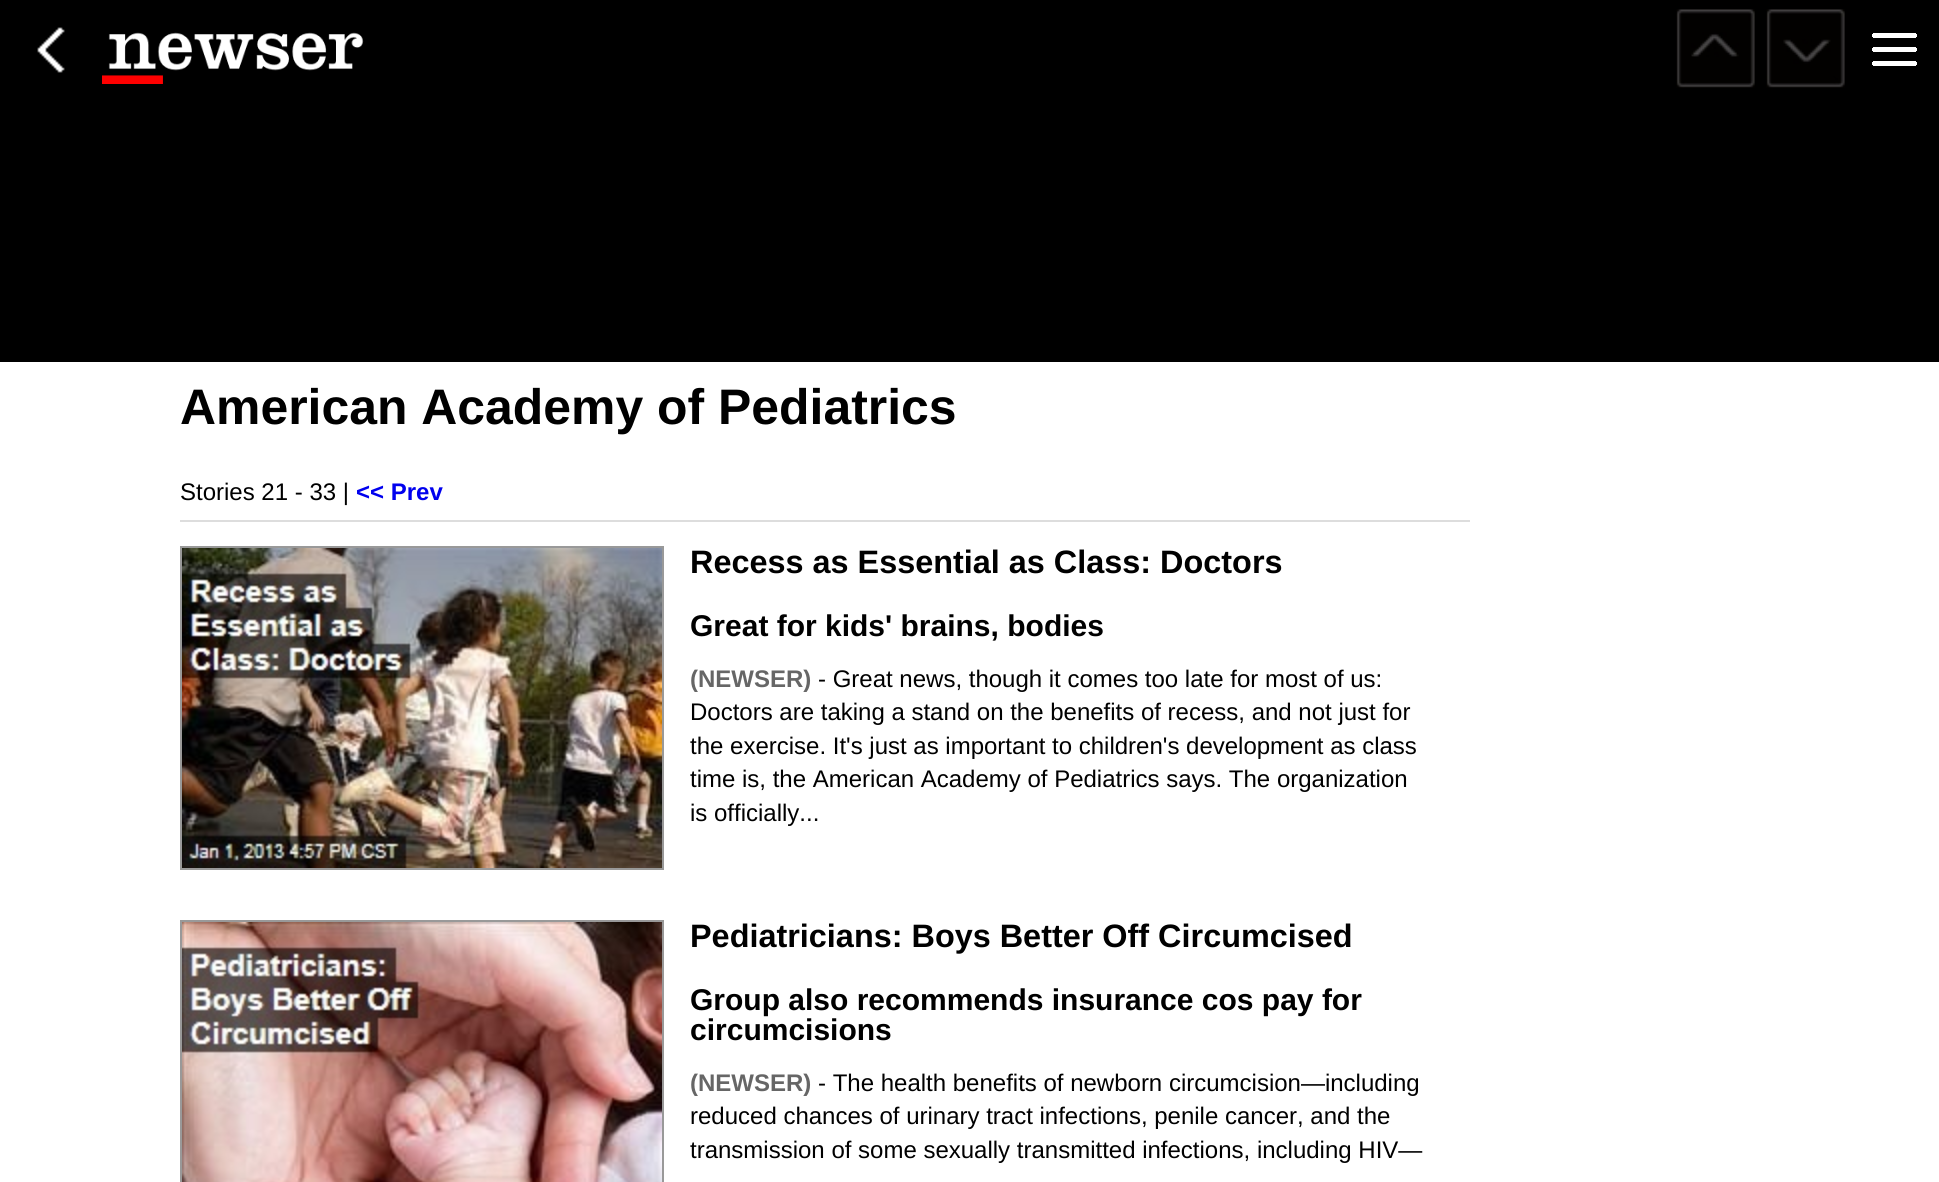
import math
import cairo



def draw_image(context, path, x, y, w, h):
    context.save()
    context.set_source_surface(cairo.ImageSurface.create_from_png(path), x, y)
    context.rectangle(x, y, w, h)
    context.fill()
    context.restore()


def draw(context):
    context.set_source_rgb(1, 1, 1)
    context.paint()
    context.set_source_rgb(0, 0, 0)
    context.rectangle(0, 0, 1939, 362)
    context.fill()
    draw_image(context, "images/1.png", 37, 27, 28, 46)
    draw_image(context, "images/2.png", 102, 32, 262, 52)
    draw_image(context, "images/3.png", 1676, 9, 79, 79)
    draw_image(context, "images/4.png", 1766, 9, 79, 79)
    draw_image(context, "images/5.png", 1872, 33, 45, 33)
    context.set_source_rgb(221 / 255, 221 / 255, 221 / 255)
    context.rectangle(180, 520, 1290, 2)
    context.fill()
    context.rectangle(181, 547, 482, 322)
    context.set_source_rgb(153 / 255, 153 / 255, 153 / 255)
    context.stroke()
    draw_image(context, "images/6.png", 182, 548, 480, 320)
    context.rectangle(181, 921, 482, 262)
    context.stroke()
    draw_image(context, "images/7.png", 182, 922, 480, 260)
    context.select_font_face("Liberation Sans", cairo.FontSlant.NORMAL, cairo.FontWeight.BOLD)
    context.set_font_size(49.9)
    context.set_source_rgb(0, 0, 0)
    context.move_to(180, 424)
    context.show_text("American Academy of Pediatrics")
    context.select_font_face("Liberation Sans")
    context.set_font_size(24)
    context.move_to(180, 500)
    context.show_text("Stories 21 - 33 |")
    context.select_font_face("Liberation Sans", cairo.FontSlant.NORMAL, cairo.FontWeight.BOLD)
    context.set_source_rgb(0, 0, 238 / 255)
    context.move_to(356, 500)
    context.show_text("<< Prev")
    context.set_font_size(32.4)
    context.set_source_rgb(0, 0, 0)
    context.move_to(690, 573)
    context.show_text("Recess as Essential as Class: Doctors")
    context.set_font_size(30)
    context.move_to(690, 636)
    context.show_text("Great for kids' brains, bodies")
    context.set_font_size(24)
    context.set_source_rgb(102 / 255, 102 / 255, 102 / 255)
    context.move_to(690, 687)
    context.show_text("(NEWSER)")
    context.select_font_face("Liberation Sans")
    context.set_source_rgb(0, 0, 0)
    context.move_to(818, 687)
    context.show_text("- Great news, though it comes too late for most of us:")
    context.move_to(690, 720)
    context.show_text("Doctors are taking a stand on the benefits of recess, and not just for")
    context.move_to(690, 754)
    context.show_text("the exercise. It's just as important to children's development as class")
    context.move_to(690, 787)
    context.show_text("time is, the American Academy of Pediatrics says. The organization")
    context.move_to(690, 821)
    context.show_text("is officially...")
    context.select_font_face("Liberation Sans", cairo.FontSlant.NORMAL, cairo.FontWeight.BOLD)
    context.set_font_size(32.4)
    context.move_to(690, 947)
    context.show_text("Pediatricians: Boys Better Off Circumcised")
    context.set_font_size(30)
    context.move_to(690, 1010)
    context.show_text("Group also recommends insurance cos pay for")
    context.move_to(690, 1040)
    context.show_text("circumcisions")
    context.set_font_size(24)
    context.set_source_rgb(102 / 255, 102 / 255, 102 / 255)
    context.move_to(690, 1091)
    context.show_text("(NEWSER)")
    context.select_font_face("Liberation Sans")
    context.set_source_rgb(0, 0, 0)
    context.move_to(818, 1091)
    context.show_text("- The health benefits of newborn circumcision—including")
    context.move_to(690, 1124)
    context.show_text("reduced chances of urinary tract infections, penile cancer, and the")
    context.move_to(690, 1158)
    context.show_text("transmission of some sexually transmitted infections, including HIV—")


surface = cairo.ImageSurface(cairo.Format.RGB24, 1939, 1182)
context = cairo.Context(surface)
options = cairo.FontOptions()
options.set_hint_metrics(cairo.HintMetrics.OFF)
options.set_hint_style(cairo.HintStyle.NONE)
context.set_font_options(options)
context.set_miter_limit(4)
draw(context)
surface.write_to_png("out.png")
